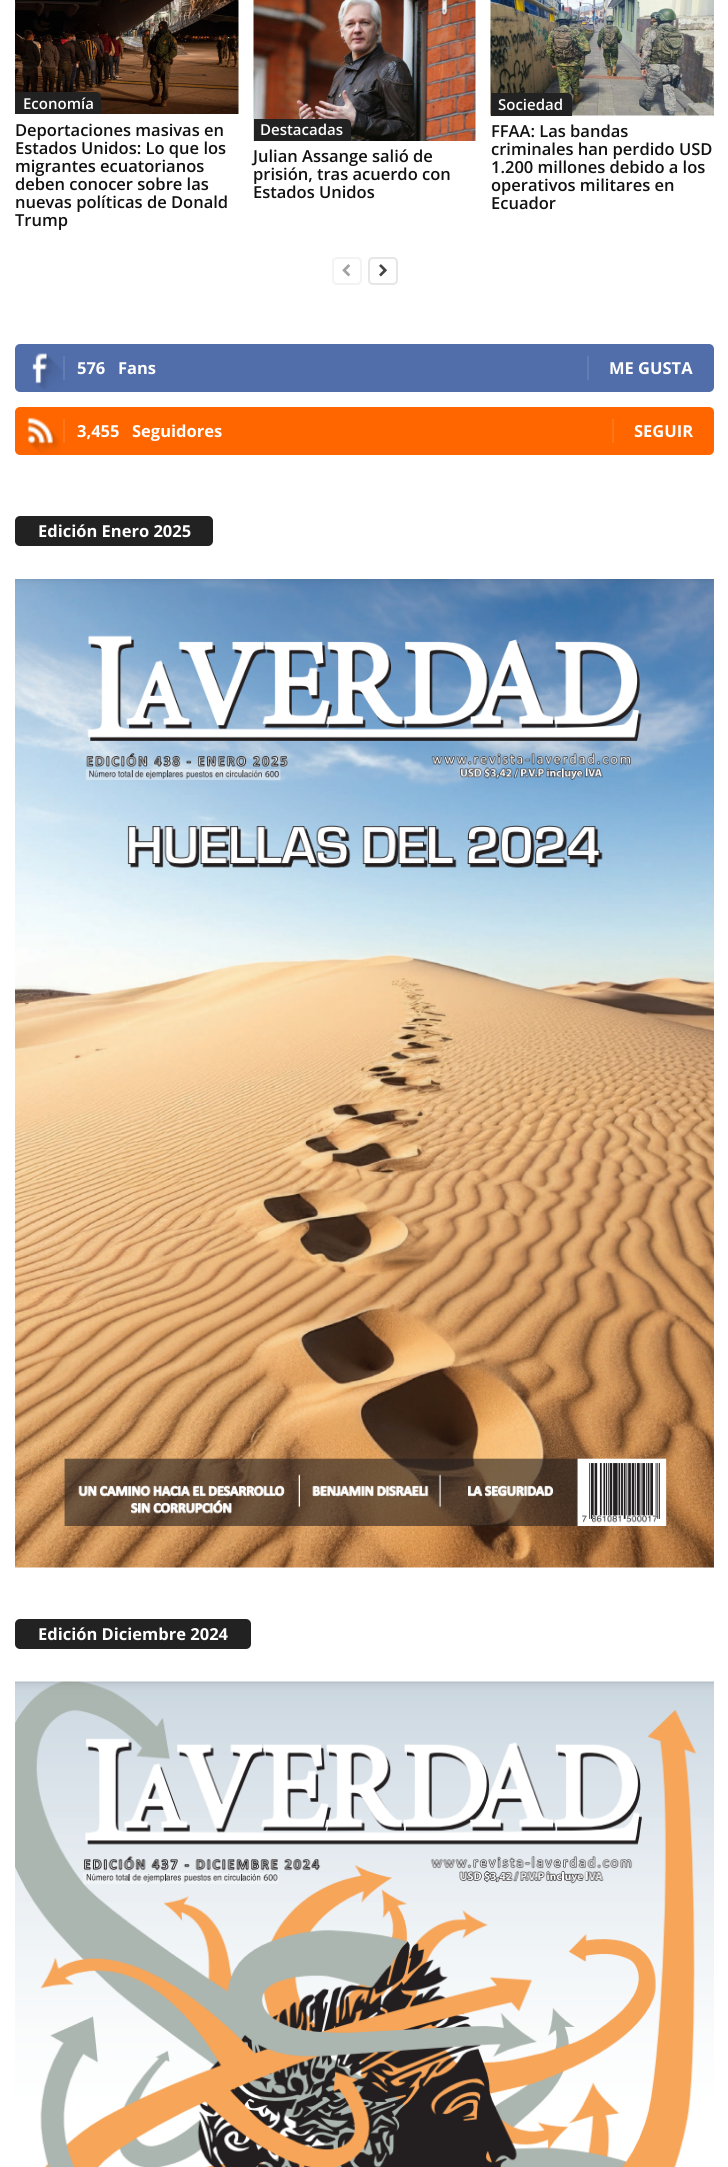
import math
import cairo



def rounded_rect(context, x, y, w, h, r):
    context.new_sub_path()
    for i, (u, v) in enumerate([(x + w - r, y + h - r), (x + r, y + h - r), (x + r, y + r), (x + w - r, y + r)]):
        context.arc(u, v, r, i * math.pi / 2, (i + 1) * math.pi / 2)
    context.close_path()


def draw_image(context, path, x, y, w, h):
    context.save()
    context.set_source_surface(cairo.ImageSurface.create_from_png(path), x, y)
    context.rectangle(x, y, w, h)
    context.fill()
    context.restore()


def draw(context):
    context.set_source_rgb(1, 1, 1)
    context.paint()
    draw_image(context, "images/1.png", 15, 0, 224, 114)
    context.set_source_rgb(34 / 255, 34 / 255, 34 / 255)
    context.new_path()
    context.move_to(15, 92)
    context.line_to(96, 92)
    context.curve_to(99, 92, 101, 94, 101, 97)
    context.line_to(101, 114)
    context.line_to(15, 114)
    context.close_path()
    context.fill()
    draw_image(context, "images/2.png", 253, 0, 223, 141)
    context.new_path()
    context.move_to(254, 119)
    context.line_to(346, 119)
    context.curve_to(349, 119, 351, 121, 351, 124)
    context.line_to(351, 141)
    context.line_to(254, 141)
    context.close_path()
    context.fill()
    draw_image(context, "images/3.png", 490, 0, 224, 116)
    context.new_path()
    context.move_to(491, 93)
    context.line_to(567, 93)
    context.curve_to(570, 93, 572, 95, 572, 98)
    context.line_to(572, 116)
    context.line_to(491, 116)
    context.close_path()
    context.fill()
    rounded_rect(context, 333, 258, 28, 26, 4)
    context.set_source_rgb(243 / 255, 243 / 255, 243 / 255)
    context.stroke()
    draw_image(context, "images/4.png", 342, 264, 8, 13)
    rounded_rect(context, 369, 258, 28, 26, 4)
    context.set_source_rgb(230 / 255, 230 / 255, 230 / 255)
    context.stroke()
    draw_image(context, "images/5.png", 379, 264, 8, 13)
    context.set_source_rgb(81 / 255, 110 / 255, 171 / 255)
    rounded_rect(context, 15, 344, 699, 48, 5)
    context.fill()
    draw_image(context, "images/6.png", 32, 353, 31, 38)
    context.set_source_rgb(98 / 255, 125 / 255, 179 / 255)
    context.rectangle(63, 356, 2, 24)
    context.fill()
    context.rectangle(587, 356, 2, 24)
    context.fill()
    context.set_source_rgb(1, 102 / 255, 0)
    rounded_rect(context, 15, 407, 699, 48, 5)
    context.fill()
    draw_image(context, "images/7.png", 27, 417, 34, 37)
    context.set_source_rgb(1, 117 / 255, 26 / 255)
    context.rectangle(63, 419, 2, 24)
    context.fill()
    context.rectangle(612, 419, 2, 24)
    context.fill()
    context.set_source_rgb(34 / 255, 34 / 255, 34 / 255)
    rounded_rect(context, 15, 516, 198, 30, 5)
    context.fill()
    draw_image(context, "images/8.png", 15, 579, 699, 989)
    rounded_rect(context, 15, 1619, 236, 30, 5)
    context.fill()
    draw_image(context, "images/9.png", 15, 1681, 699, 486)
    context.select_font_face("Open Sans SemiBold")
    context.set_font_size(15)
    context.set_source_rgb(1, 1, 1)
    context.move_to(23, 109)
    context.show_text("Economía")
    context.set_font_size(16.5)
    context.set_source_rgb(17 / 255, 17 / 255, 17 / 255)
    context.move_to(15, 136)
    context.show_text("Deportaciones masivas en")
    context.move_to(15, 154)
    context.show_text("Estados Unidos: Lo que los")
    context.move_to(15, 172)
    context.show_text("migrantes ecuatorianos")
    context.move_to(15, 190)
    context.show_text("deben conocer sobre las")
    context.move_to(15, 208)
    context.show_text("nuevas políticas de Donald")
    context.move_to(15, 226)
    context.show_text("Trump")
    context.set_font_size(15)
    context.set_source_rgb(1, 1, 1)
    context.move_to(260, 135)
    context.show_text("Destacadas")
    context.set_font_size(16.5)
    context.set_source_rgb(17 / 255, 17 / 255, 17 / 255)
    context.move_to(253, 162)
    context.show_text("Julian Assange salió de")
    context.move_to(253, 180)
    context.show_text("prisión, tras acuerdo con")
    context.move_to(253, 198)
    context.show_text("Estados Unidos")
    context.set_font_size(15)
    context.set_source_rgb(1, 1, 1)
    context.move_to(498, 110)
    context.show_text("Sociedad")
    context.set_font_size(16.5)
    context.set_source_rgb(17 / 255, 17 / 255, 17 / 255)
    context.move_to(491, 137)
    context.show_text("FFAA: Las bandas")
    context.move_to(491, 155)
    context.show_text("criminales han perdido USD")
    context.move_to(491, 173)
    context.show_text("1.200 millones debido a los")
    context.move_to(491, 191)
    context.show_text("operativos militares en")
    context.move_to(491, 209)
    context.show_text("Ecuador")
    context.select_font_face("Open Sans", cairo.FontSlant.NORMAL, cairo.FontWeight.BOLD)
    context.set_source_rgb(1, 1, 1)
    context.move_to(77, 374)
    context.show_text("576")
    context.move_to(118, 374)
    context.show_text("Fans")
    context.move_to(609, 374)
    context.show_text("ME GUSTA")
    context.move_to(77, 437)
    context.show_text("3,455")
    context.move_to(132, 437)
    context.show_text("Seguidores")
    context.move_to(634, 437)
    context.show_text("SEGUIR")
    context.move_to(38, 537)
    context.show_text("Edición Enero 2025")
    context.move_to(38, 1640)
    context.show_text("Edición Diciembre 2024")


surface = cairo.ImageSurface(cairo.Format.RGB24, 728, 2167)
context = cairo.Context(surface)
options = cairo.FontOptions()
options.set_hint_metrics(cairo.HintMetrics.OFF)
options.set_hint_style(cairo.HintStyle.NONE)
context.set_font_options(options)
context.set_miter_limit(4)
draw(context)
surface.write_to_png("out.png")
